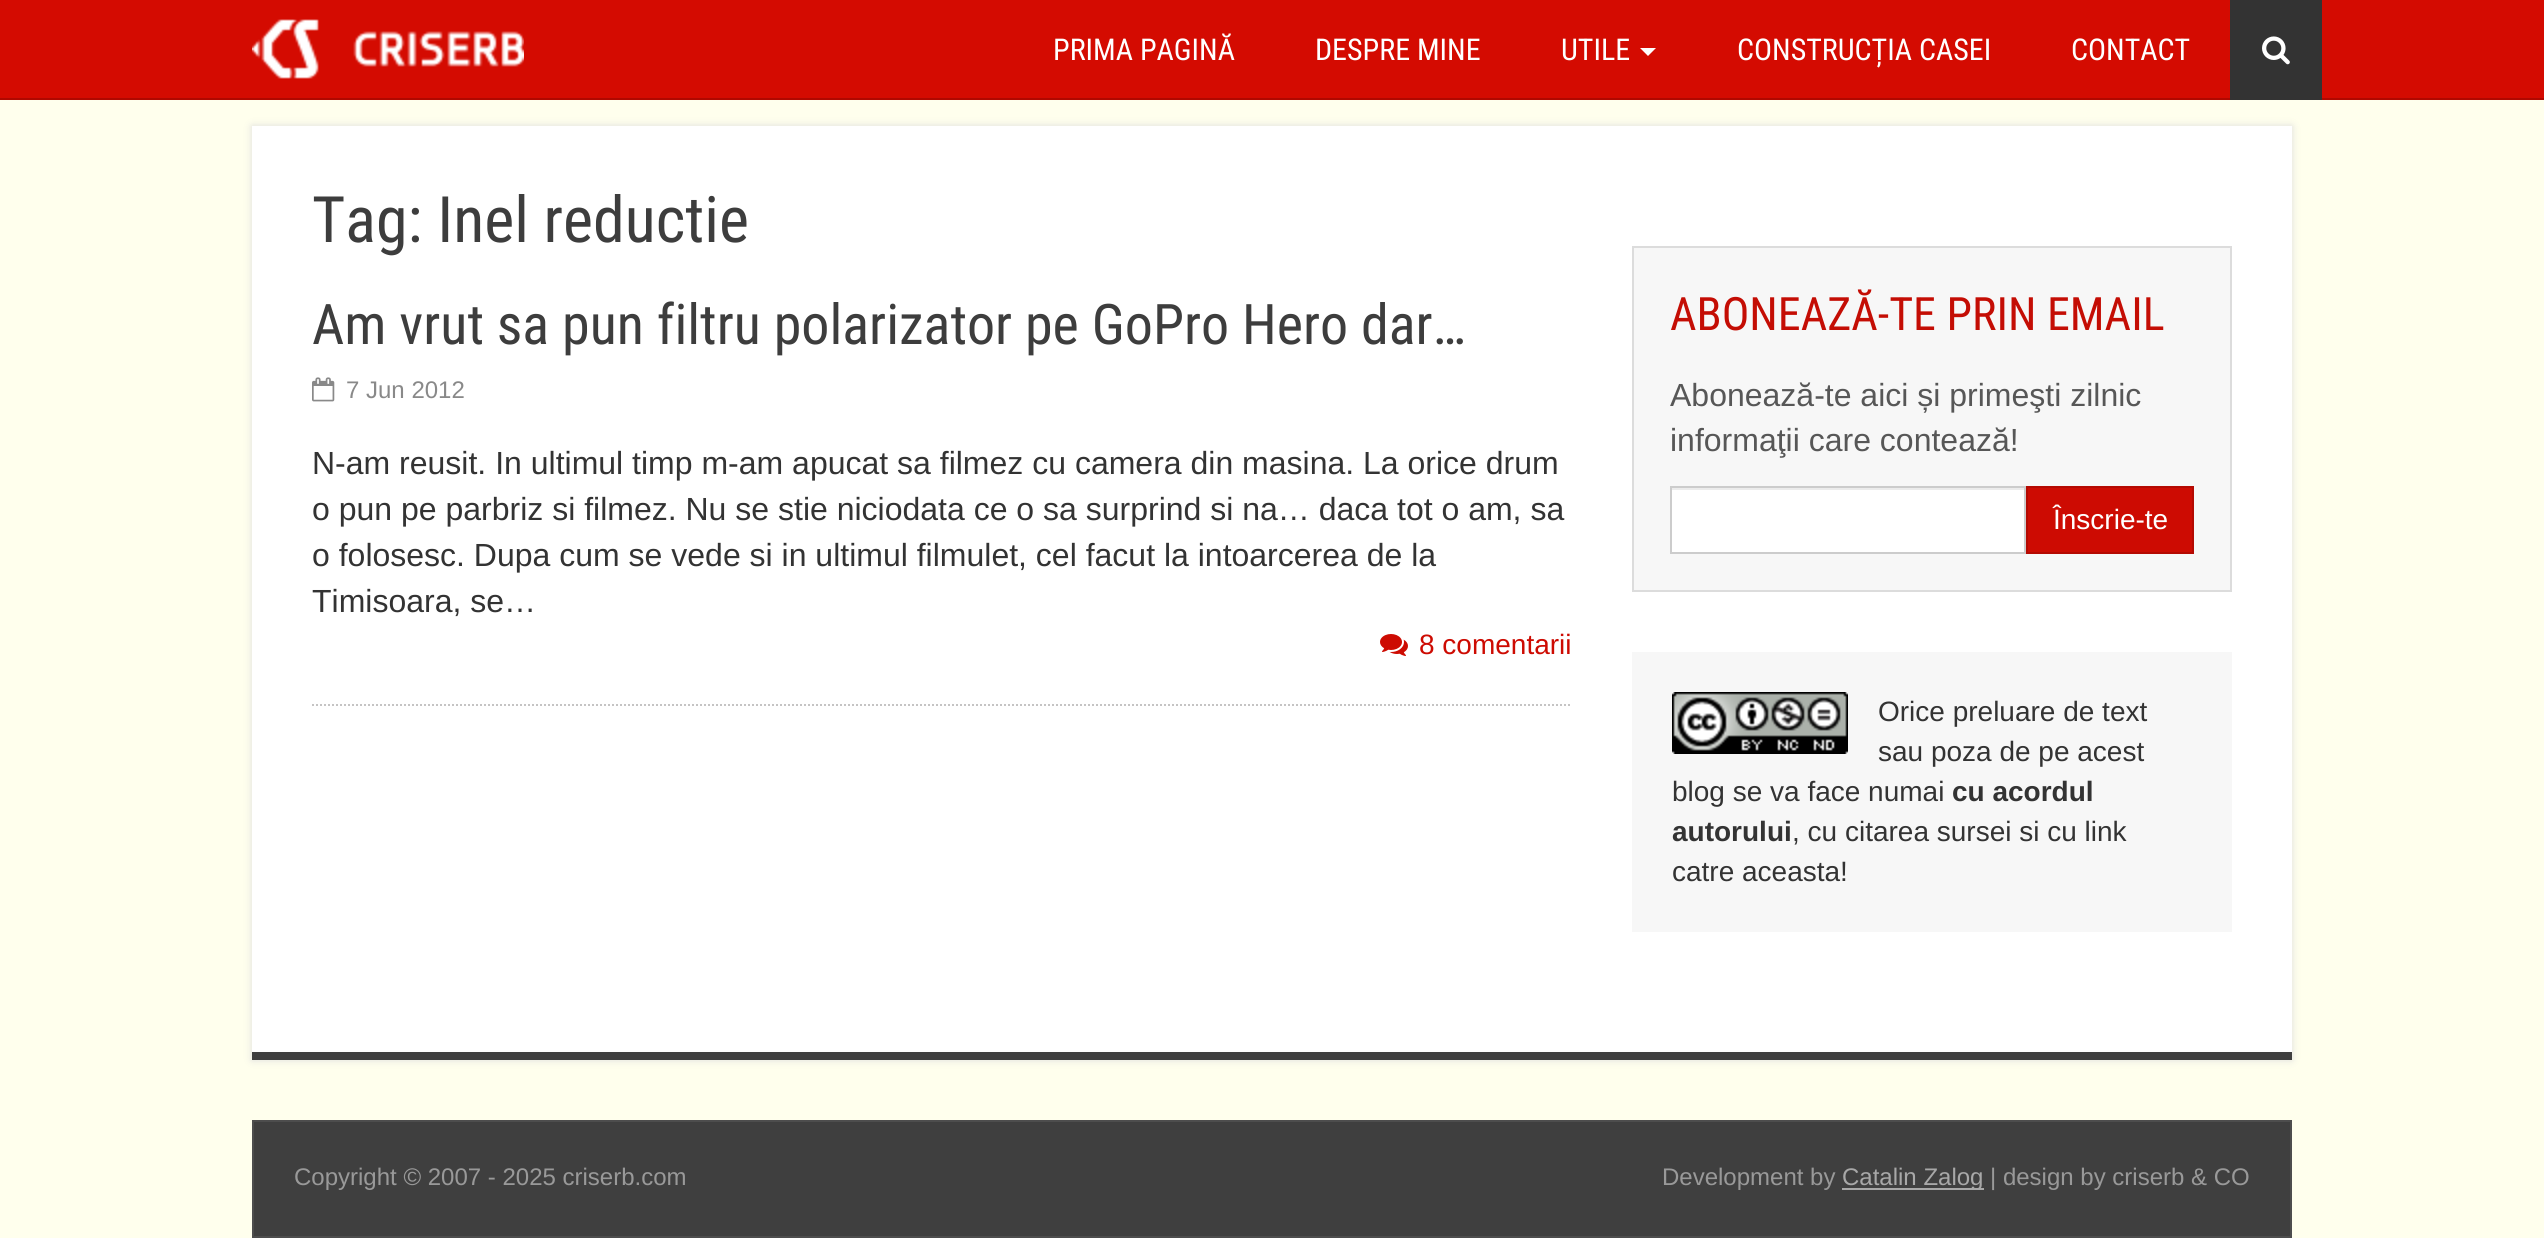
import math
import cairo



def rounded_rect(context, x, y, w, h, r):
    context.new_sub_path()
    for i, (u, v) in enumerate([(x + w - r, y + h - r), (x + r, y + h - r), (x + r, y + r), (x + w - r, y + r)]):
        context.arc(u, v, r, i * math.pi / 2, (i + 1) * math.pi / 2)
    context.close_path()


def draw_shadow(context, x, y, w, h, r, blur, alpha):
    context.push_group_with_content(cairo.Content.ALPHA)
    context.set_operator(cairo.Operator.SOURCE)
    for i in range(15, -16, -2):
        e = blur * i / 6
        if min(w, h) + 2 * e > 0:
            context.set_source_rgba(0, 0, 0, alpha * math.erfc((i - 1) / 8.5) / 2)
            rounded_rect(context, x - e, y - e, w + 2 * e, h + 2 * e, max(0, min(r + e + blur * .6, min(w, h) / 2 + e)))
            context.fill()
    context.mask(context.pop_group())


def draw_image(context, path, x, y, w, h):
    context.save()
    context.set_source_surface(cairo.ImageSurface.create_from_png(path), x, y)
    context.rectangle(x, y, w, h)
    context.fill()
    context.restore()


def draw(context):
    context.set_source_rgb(1, 1, 237 / 255)
    context.paint()
    context.set_source_rgb(212 / 255, 11 / 255, 1 / 255)
    context.rectangle(0, 0, 2544, 98)
    context.fill()
    context.set_source_rgb(176 / 255, 8 / 255, 0)
    context.rectangle(0, 98, 2544, 2)
    context.fill()
    draw_image(context, "images/1.png", 252, 19, 272, 60)
    context.set_source_rgb(1, 1, 1)
    context.new_path()
    context.move_to(1640, 48)
    context.line_to(1656, 48)
    context.line_to(1648, 56)
    context.close_path()
    context.fill()
    context.set_source_rgb(51 / 255, 51 / 255, 51 / 255)
    context.rectangle(2230, 0, 92, 100)
    context.fill()
    draw_image(context, "images/2.png", 2262, 36, 28, 29)
    context.set_source_rgb(221 / 255, 221 / 255, 221 / 255)
    draw_shadow(context, 252, 126, 2040, 934, 0, 4, 1)
    context.set_source_rgb(1, 1, 1)
    context.rectangle(252, 126, 2040, 926)
    context.fill()
    context.set_source_rgb(63 / 255, 63 / 255, 63 / 255)
    context.rectangle(252, 1052, 2040, 8)
    context.fill()
    context.new_path()
    context.move_to(312, 705)
    context.line_to(1572, 705)
    context.set_source_rgb(197 / 255, 196 / 255, 196 / 255)
    context.set_dash([2, 2])
    context.stroke()
    draw_image(context, "images/3.png", 312, 377, 23, 25)
    draw_image(context, "images/4.png", 1380, 634, 28, 22)
    context.set_source_rgb(247 / 255, 247 / 255, 247 / 255)
    context.rectangle(1633, 247, 598, 344)
    context.fill_preserve()
    context.set_source_rgb(220 / 255, 220 / 255, 220 / 255)
    context.set_dash([])
    context.stroke()
    context.set_source_rgb(1, 1, 1)
    context.rectangle(1672, 490, 352, 62)
    context.fill()
    context.set_source_rgb(236 / 255, 236 / 255, 236 / 255)
    context.rectangle(1672, 488, 352, 2)
    context.fill()
    context.rectangle(1671, 487, 354, 66)
    context.set_source_rgb(204 / 255, 204 / 255, 204 / 255)
    context.stroke()
    context.set_source_rgb(205 / 255, 11 / 255, 2 / 255)
    context.rectangle(2027, 487, 166, 66)
    context.fill_preserve()
    context.set_source_rgb(180 / 255, 10 / 255, 2 / 255)
    context.stroke()
    context.set_source_rgb(247 / 255, 247 / 255, 247 / 255)
    context.rectangle(1632, 652, 600, 280)
    context.fill()
    draw_image(context, "images/5.png", 1672, 692, 176, 62)
    context.set_source_rgb(63 / 255, 63 / 255, 63 / 255)
    context.rectangle(253, 1121, 2038, 116)
    context.fill_preserve()
    context.set_source_rgb(77 / 255, 77 / 255, 77 / 255)
    context.stroke()
    context.set_source_rgb(168 / 255, 168 / 255, 168 / 255)
    context.rectangle(1842, 1188, 142, 2)
    context.fill()
    context.select_font_face("Roboto Condensed")
    context.set_font_size(30)
    context.set_source_rgb(1, 1, 1)
    context.move_to(1053, 60)
    context.show_text("PRIMA PAGINĂ")
    context.move_to(1315, 60)
    context.show_text("DESPRE MINE")
    context.move_to(1561, 60)
    context.show_text("UTILE")
    context.move_to(1737, 60)
    context.show_text("CONSTRUCȚIA CASEI")
    context.move_to(2071, 60)
    context.show_text("CONTACT")
    context.set_font_size(64)
    context.set_source_rgb(61 / 255, 61 / 255, 61 / 255)
    context.move_to(312, 242)
    context.show_text("Tag: Inel reductie")
    context.set_font_size(56)
    context.move_to(312, 344)
    context.show_text("Am vrut sa pun filtru polarizator pe GoPro Hero dar…")
    context.select_font_face("Liberation Sans")
    context.set_font_size(24)
    context.set_source_rgb(137 / 255, 137 / 255, 137 / 255)
    context.move_to(346, 398)
    context.show_text("7 Jun 2012")
    context.set_font_size(32)
    context.set_source_rgb(51 / 255, 51 / 255, 51 / 255)
    context.move_to(312, 474)
    context.show_text("N-am reusit. In ultimul timp m-am apucat sa filmez cu camera din masina. La orice drum")
    context.move_to(312, 520)
    context.show_text("o pun pe parbriz si filmez. Nu se stie niciodata ce o sa surprind si na… daca tot o am, sa")
    context.move_to(312, 566)
    context.show_text("o folosesc. Dupa cum se vede si in ultimul filmulet, cel facut la intoarcerea de la")
    context.move_to(312, 612)
    context.show_text("Timisoara, se…")
    context.set_font_size(28)
    context.set_source_rgb(205 / 255, 11 / 255, 2 / 255)
    context.move_to(1419, 654)
    context.show_text("8 comentarii")
    context.select_font_face("Roboto Condensed")
    context.set_font_size(46)
    context.set_source_rgb(196 / 255, 13 / 255, 4 / 255)
    context.move_to(1670, 330)
    context.show_text("ABONEAZĂ-TE PRIN EMAIL")
    context.select_font_face("Liberation Sans")
    context.set_font_size(32)
    context.set_source_rgb(87 / 255, 87 / 255, 87 / 255)
    context.move_to(1670, 406)
    context.show_text("Abonează-te aici și primeşti zilnic")
    context.move_to(1670, 451)
    context.show_text("informaţii care contează!")
    context.set_font_size(28)
    context.set_source_rgb(1, 1, 1)
    context.move_to(2053, 529)
    context.show_text("Înscrie-te")
    context.set_source_rgb(51 / 255, 51 / 255, 51 / 255)
    context.move_to(1878, 721)
    context.show_text("Orice preluare de text")
    context.move_to(1878, 761)
    context.show_text("sau poza de pe acest")
    context.move_to(1672, 801)
    context.show_text("blog se va face numai")
    context.select_font_face("Liberation Sans", cairo.FontSlant.NORMAL, cairo.FontWeight.BOLD)
    context.move_to(1952, 801)
    context.show_text("cu acordul")
    context.move_to(1672, 841)
    context.show_text("autorului")
    context.select_font_face("Liberation Sans")
    context.move_to(1792, 841)
    context.show_text(", cu citarea sursei si cu link")
    context.move_to(1672, 881)
    context.show_text("catre aceasta!")
    context.set_font_size(24)
    context.set_source_rgb(153 / 255, 153 / 255, 153 / 255)
    context.move_to(294, 1185)
    context.show_text("Copyright © 2007 - 2025 criserb.com")
    context.move_to(1662, 1185)
    context.show_text("Development by")
    context.set_source_rgb(168 / 255, 168 / 255, 168 / 255)
    context.move_to(1842, 1185)
    context.show_text("Catalin Zalog")
    context.set_source_rgb(153 / 255, 153 / 255, 153 / 255)
    context.move_to(1990, 1185)
    context.show_text("| design by criserb & CO")


surface = cairo.ImageSurface(cairo.Format.RGB24, 2544, 1238)
context = cairo.Context(surface)
options = cairo.FontOptions()
options.set_hint_metrics(cairo.HintMetrics.OFF)
options.set_hint_style(cairo.HintStyle.NONE)
context.set_font_options(options)
context.set_miter_limit(4)
draw(context)
surface.write_to_png("out.png")
